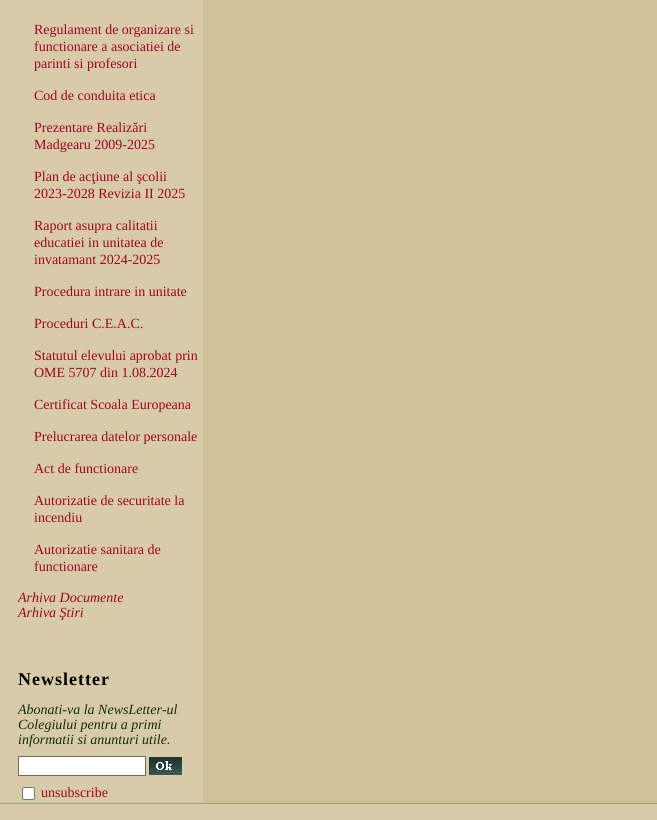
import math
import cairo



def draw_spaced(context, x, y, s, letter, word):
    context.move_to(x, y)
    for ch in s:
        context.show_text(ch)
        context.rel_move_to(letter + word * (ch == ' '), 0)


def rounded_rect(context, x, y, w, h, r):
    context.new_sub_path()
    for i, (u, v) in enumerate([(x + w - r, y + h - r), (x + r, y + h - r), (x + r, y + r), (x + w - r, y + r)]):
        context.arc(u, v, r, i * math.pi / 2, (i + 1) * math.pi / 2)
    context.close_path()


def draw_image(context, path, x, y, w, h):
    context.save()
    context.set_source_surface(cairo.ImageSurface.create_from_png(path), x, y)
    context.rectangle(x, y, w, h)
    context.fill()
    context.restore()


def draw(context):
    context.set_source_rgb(216 / 255, 203 / 255, 168 / 255)
    context.paint()
    context.set_source_rgb(207 / 255, 192 / 255, 151 / 255)
    context.rectangle(203, 0, 454, 803)
    context.fill()
    context.set_source_rgb(1, 1, 1)
    context.rectangle(18.5, 756.5, 127, 19)
    context.fill_preserve()
    context.set_source_rgb(116 / 255, 109 / 255, 91 / 255)
    context.set_line_width(1)
    context.stroke()
    draw_image(context, "images/1.png", 149, 757, 33, 18)
    context.set_source_rgb(1, 1, 1)
    rounded_rect(context, 22.5, 787.5, 12, 12, 1.5)
    context.fill_preserve()
    context.set_source_rgb(118 / 255, 118 / 255, 118 / 255)
    context.stroke()
    context.set_source_rgb(167 / 255, 158 / 255, 134 / 255)
    context.rectangle(0, 803, 657, 1)
    context.fill()
    context.select_font_face("Liberation Serif")
    context.set_font_size(14)
    context.set_source_rgb(163 / 255, 3 / 255, 33 / 255)
    context.move_to(34, 34)
    context.show_text("Regulament de organizare si")
    context.move_to(34, 51)
    context.show_text("functionare a asociatiei de")
    context.move_to(34, 68)
    context.show_text("parinti si profesori")
    context.move_to(34, 100)
    context.show_text("Cod de conduita etica")
    context.move_to(34, 132)
    context.show_text("Prezentare Realizări")
    context.move_to(34, 149)
    context.show_text("Madgearu 2009-2025")
    context.move_to(34, 181)
    context.show_text("Plan de acţiune al şcolii")
    context.move_to(34, 198)
    context.show_text("2023-2028 Revizia II 2025")
    context.move_to(34, 230)
    context.show_text("Raport asupra calitatii")
    context.move_to(34, 247)
    context.show_text("educatiei in unitatea de")
    context.move_to(34, 264)
    context.show_text("invatamant 2024-2025")
    context.move_to(34, 296)
    context.show_text("Procedura intrare in unitate")
    context.move_to(34, 328)
    context.show_text("Proceduri C.E.A.C.")
    context.move_to(34, 360)
    context.show_text("Statutul elevului aprobat prin")
    context.move_to(34, 377)
    context.show_text("OME 5707 din 1.08.2024")
    context.move_to(34, 409)
    context.show_text("Certificat Scoala Europeana")
    context.move_to(34, 441)
    context.show_text("Prelucrarea datelor personale")
    context.move_to(34, 473)
    context.show_text("Act de functionare")
    context.move_to(34, 505)
    context.show_text("Autorizatie de securitate la")
    context.move_to(34, 522)
    context.show_text("incendiu")
    context.move_to(34, 554)
    context.show_text("Autorizatie sanitara de")
    context.move_to(34, 571)
    context.show_text("functionare")
    context.select_font_face("Liberation Serif", cairo.FontSlant.ITALIC)
    context.move_to(18, 602)
    context.show_text("Arhiva Documente")
    context.move_to(18, 617)
    context.show_text("Arhiva Ştiri")
    context.select_font_face("Liberation Serif", cairo.FontSlant.NORMAL, cairo.FontWeight.BOLD)
    context.set_font_size(18)
    context.set_source_rgb(0, 0, 0)
    draw_spaced(context, 18, 685, "Newsletter", 1, 0)
    context.select_font_face("Liberation Serif", cairo.FontSlant.ITALIC)
    context.set_font_size(14)
    context.set_source_rgb(19 / 255, 45 / 255, 11 / 255)
    context.move_to(18, 714)
    context.show_text("Abonati-va la NewsLetter-ul")
    context.move_to(18, 729)
    context.show_text("Colegiului pentru a primi")
    context.move_to(18, 744)
    context.show_text("informatii si anunturi utile.")
    context.select_font_face("Liberation Serif")
    context.set_source_rgb(163 / 255, 3 / 255, 33 / 255)
    context.move_to(41, 797)
    context.show_text("unsubscribe")


surface = cairo.ImageSurface(cairo.Format.RGB24, 657, 820)
context = cairo.Context(surface)
options = cairo.FontOptions()
options.set_hint_metrics(cairo.HintMetrics.OFF)
options.set_hint_style(cairo.HintStyle.NONE)
context.set_font_options(options)
context.set_miter_limit(4)
draw(context)
surface.write_to_png("out.png")
